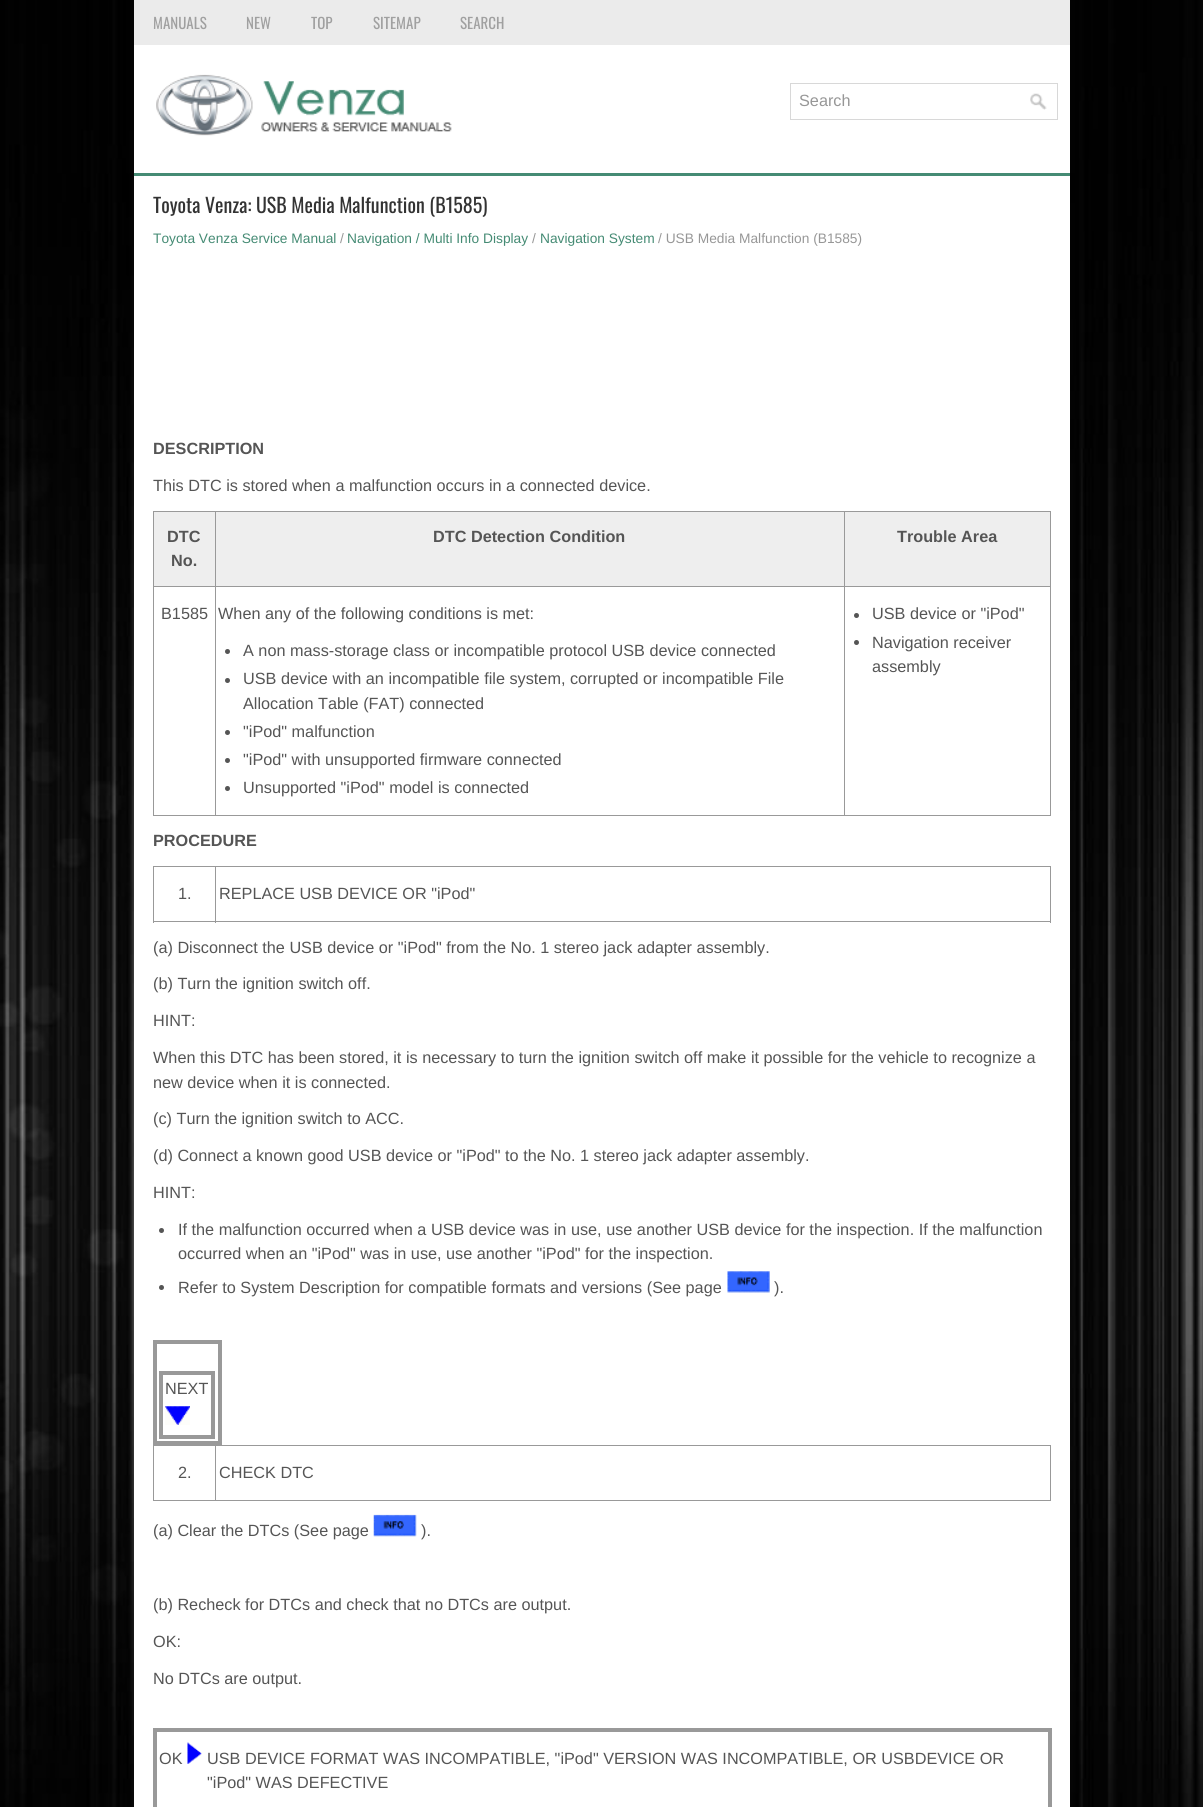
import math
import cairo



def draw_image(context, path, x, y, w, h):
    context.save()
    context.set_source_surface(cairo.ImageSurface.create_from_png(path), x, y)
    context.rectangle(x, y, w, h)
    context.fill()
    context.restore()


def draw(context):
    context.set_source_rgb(1, 1, 1)
    context.paint()
    draw_image(context, "images/1.png", 0, 0, 1203, 1807)
    context.set_source_rgb(235 / 255, 235 / 255, 235 / 255)
    context.rectangle(134, 0, 936, 45)
    context.fill()
    context.set_source_rgb(1, 1, 1)
    context.rectangle(134, 45, 936, 128)
    context.fill()
    context.set_source_rgb(69 / 255, 139 / 255, 116 / 255)
    context.rectangle(134, 173, 936, 3)
    context.fill()
    draw_image(context, "images/2.png", 156, 74, 296, 62)
    context.rectangle(790.5, 83.5, 267, 36)
    context.set_source_rgb(216 / 255, 216 / 255, 216 / 255)
    context.set_line_width(1)
    context.stroke()
    draw_image(context, "images/3.png", 1030, 93, 17, 17)
    context.set_source_rgb(1, 1, 1)
    context.rectangle(134, 176, 936, 1631)
    context.fill()
    context.set_source_rgb(153 / 255, 153 / 255, 153 / 255)
    context.rectangle(153, 511, 898, 1)
    context.fill()
    context.rectangle(1050, 511, 1, 305)
    context.fill()
    context.rectangle(153, 815, 898, 1)
    context.fill()
    context.rectangle(153, 511, 1, 305)
    context.fill()
    context.set_source_rgb(238 / 255, 238 / 255, 238 / 255)
    context.rectangle(154, 512, 61, 74)
    context.fill()
    context.rectangle(216, 512, 628, 74)
    context.fill()
    context.set_source_rgb(153 / 255, 153 / 255, 153 / 255)
    context.rectangle(844, 586, 207, 1)
    context.fill()
    context.rectangle(844, 586, 1, 230)
    context.fill()
    context.rectangle(215, 586, 630, 1)
    context.fill()
    context.rectangle(215, 586, 1, 230)
    context.fill()
    context.rectangle(153, 586, 63, 1)
    context.fill()
    context.rectangle(215, 511, 1, 77)
    context.fill()
    context.set_source_rgb(238 / 255, 238 / 255, 238 / 255)
    context.rectangle(845, 512, 205, 74)
    context.fill()
    context.set_source_rgb(153 / 255, 153 / 255, 153 / 255)
    context.rectangle(844, 511, 1, 77)
    context.fill()
    context.set_source_rgb(85 / 255, 85 / 255, 85 / 255)
    context.arc(227.5, 651.5, 2.5, 0, 2 * math.pi)
    context.fill()
    context.arc(227.5, 680.5, 2.5, 0, 2 * math.pi)
    context.fill()
    context.arc(227.5, 732.5, 2.5, 0, 2 * math.pi)
    context.fill()
    context.arc(227.5, 760.5, 2.5, 0, 2 * math.pi)
    context.fill()
    context.arc(227.5, 788.5, 2.5, 0, 2 * math.pi)
    context.fill()
    context.arc(856.5, 615.5, 2.5, 0, 2 * math.pi)
    context.fill()
    context.arc(856.5, 642.5, 2.5, 0, 2 * math.pi)
    context.fill()
    context.set_source_rgb(153 / 255, 153 / 255, 153 / 255)
    context.rectangle(153, 866, 898, 1)
    context.fill()
    context.rectangle(1050, 866, 1, 57)
    context.fill()
    context.rectangle(153, 921, 898, 1)
    context.fill()
    context.rectangle(153, 866, 1, 57)
    context.fill()
    context.rectangle(215, 866, 1, 57)
    context.fill()
    context.set_source_rgb(85 / 255, 85 / 255, 85 / 255)
    context.arc(161.5, 1230.5, 2.5, 0, 2 * math.pi)
    context.fill()
    context.arc(161.5, 1287.5, 2.5, 0, 2 * math.pi)
    context.fill()
    draw_image(context, "images/4.png", 727, 1271, 43, 22)
    context.set_source_rgb(153 / 255, 153 / 255, 153 / 255)
    context.rectangle(153, 1340, 68, 4)
    context.fill()
    context.rectangle(218, 1340, 4, 105)
    context.fill()
    context.rectangle(153, 1441, 68, 4)
    context.fill()
    context.rectangle(153, 1340, 4, 105)
    context.fill()
    context.rectangle(159, 1371, 56, 4)
    context.fill()
    context.rectangle(211, 1371, 4, 68)
    context.fill()
    context.rectangle(159, 1435, 56, 4)
    context.fill()
    context.rectangle(159, 1371, 4, 68)
    context.fill()
    draw_image(context, "images/5.png", 165, 1406, 25, 19)
    context.rectangle(153, 1445, 898, 1)
    context.fill()
    context.rectangle(1050, 1445, 1, 56)
    context.fill()
    context.rectangle(153, 1500, 898, 1)
    context.fill()
    context.rectangle(153, 1445, 1, 56)
    context.fill()
    context.rectangle(215, 1445, 1, 56)
    context.fill()
    draw_image(context, "images/6.png", 373, 1514, 44, 23)
    context.rectangle(153, 1728, 898, 4)
    context.fill()
    context.rectangle(1048, 1728, 4, 79)
    context.fill()
    context.rectangle(153, 1728, 4, 79)
    context.fill()
    draw_image(context, "images/7.png", 187, 1742, 15, 22)
    context.select_font_face("Oswald")
    context.set_font_size(15)
    context.set_source_rgb(160 / 255, 160 / 255, 160 / 255)
    context.move_to(153, 29)
    context.show_text("MANUALS")
    context.move_to(246, 29)
    context.show_text("NEW")
    context.move_to(311, 29)
    context.show_text("TOP")
    context.move_to(373, 29)
    context.show_text("SITEMAP")
    context.move_to(460, 29)
    context.show_text("SEARCH")
    context.select_font_face("Liberation Sans")
    context.set_font_size(16.25)
    context.set_source_rgb(151 / 255, 151 / 255, 151 / 255)
    context.move_to(799, 106)
    context.show_text("Search")
    context.select_font_face("Oswald")
    context.set_font_size(20)
    context.set_source_rgb(51 / 255, 51 / 255, 51 / 255)
    context.move_to(153, 213)
    context.show_text("Toyota Venza: USB Media Malfunction (B1585)")
    context.select_font_face("Liberation Sans")
    context.set_font_size(13.75)
    context.set_source_rgb(69 / 255, 139 / 255, 116 / 255)
    context.move_to(153, 243)
    context.show_text("Toyota Venza Service Manual")
    context.set_source_rgb(151 / 255, 151 / 255, 151 / 255)
    context.move_to(340, 243)
    context.show_text("/")
    context.set_source_rgb(69 / 255, 139 / 255, 116 / 255)
    context.move_to(347, 243)
    context.show_text("Navigation / Multi Info Display")
    context.set_source_rgb(151 / 255, 151 / 255, 151 / 255)
    context.move_to(532, 243)
    context.show_text("/")
    context.set_source_rgb(69 / 255, 139 / 255, 116 / 255)
    context.move_to(540, 243)
    context.show_text("Navigation System")
    context.set_source_rgb(151 / 255, 151 / 255, 151 / 255)
    context.move_to(658, 243)
    context.show_text("/ USB Media Malfunction (B1585)")
    context.select_font_face("Liberation Sans", cairo.FontSlant.NORMAL, cairo.FontWeight.BOLD)
    context.set_font_size(16.25)
    context.set_source_rgb(85 / 255, 85 / 255, 85 / 255)
    context.move_to(153, 454)
    context.show_text("DESCRIPTION")
    context.select_font_face("Liberation Sans")
    context.move_to(153, 491)
    context.show_text("This DTC is stored when a malfunction occurs in a connected device.")
    context.select_font_face("Liberation Sans", cairo.FontSlant.NORMAL, cairo.FontWeight.BOLD)
    context.move_to(167, 542)
    context.show_text("DTC")
    context.move_to(171, 566)
    context.show_text("No.")
    context.move_to(433, 542)
    context.show_text("DTC Detection Condition")
    context.move_to(897, 542)
    context.show_text("Trouble Area")
    context.select_font_face("Liberation Sans")
    context.move_to(161, 619)
    context.show_text("B1585")
    context.move_to(218, 619)
    context.show_text("When any of the following conditions is met:")
    context.move_to(243, 656)
    context.show_text("A non mass-storage class or incompatible protocol USB device connected")
    context.move_to(243, 684)
    context.show_text("USB device with an incompatible file system, corrupted or incompatible File")
    context.move_to(243, 709)
    context.show_text("Allocation Table (FAT) connected")
    context.move_to(243, 737)
    context.show_text("\"iPod\" malfunction")
    context.move_to(243, 765)
    context.show_text("\"iPod\" with unsupported firmware connected")
    context.move_to(243, 793)
    context.show_text("Unsupported \"iPod\" model is connected")
    context.move_to(872, 619)
    context.show_text("USB device or \"iPod\"")
    context.move_to(872, 648)
    context.show_text("Navigation receiver")
    context.move_to(872, 672)
    context.show_text("assembly")
    context.select_font_face("Liberation Sans", cairo.FontSlant.NORMAL, cairo.FontWeight.BOLD)
    context.move_to(153, 846)
    context.show_text("PROCEDURE")
    context.select_font_face("Liberation Sans")
    context.move_to(178, 899)
    context.show_text("1.")
    context.move_to(219, 899)
    context.show_text("REPLACE USB DEVICE OR \"iPod\"")
    context.move_to(153, 953)
    context.show_text("(a) Disconnect the USB device or \"iPod\" from the No. 1 stereo jack adapter assembly.")
    context.move_to(153, 989)
    context.show_text("(b) Turn the ignition switch off.")
    context.move_to(153, 1026)
    context.show_text("HINT:")
    context.move_to(153, 1063)
    context.show_text("When this DTC has been stored, it is necessary to turn the ignition switch off make it possible for the vehicle to recognize a")
    context.move_to(153, 1088)
    context.show_text("new device when it is connected.")
    context.move_to(153, 1124)
    context.show_text("(c) Turn the ignition switch to ACC.")
    context.move_to(153, 1161)
    context.show_text("(d) Connect a known good USB device or \"iPod\" to the No. 1 stereo jack adapter assembly.")
    context.move_to(153, 1198)
    context.show_text("HINT:")
    context.move_to(178, 1235)
    context.show_text("If the malfunction occurred when a USB device was in use, use another USB device for the inspection. If the malfunction")
    context.move_to(178, 1259)
    context.show_text("occurred when an \"iPod\" was in use, use another \"iPod\" for the inspection.")
    context.move_to(178, 1293)
    context.show_text("Refer to System Description for compatible formats and versions (See page")
    context.move_to(774, 1293)
    context.show_text(").")
    context.move_to(165, 1394)
    context.show_text("NEXT")
    context.move_to(178, 1478)
    context.show_text("2.")
    context.move_to(219, 1478)
    context.show_text("CHECK DTC")
    context.move_to(153, 1536)
    context.show_text("(a) Clear the DTCs (See page")
    context.move_to(421, 1536)
    context.show_text(").")
    context.move_to(153, 1610)
    context.show_text("(b) Recheck for DTCs and check that no DTCs are output.")
    context.move_to(153, 1647)
    context.show_text("OK:")
    context.move_to(153, 1684)
    context.show_text("No DTCs are output.")
    context.move_to(159, 1764)
    context.show_text("OK")
    context.move_to(207, 1764)
    context.show_text("USB DEVICE FORMAT WAS INCOMPATIBLE, \"iPod\" VERSION WAS INCOMPATIBLE, OR USBDEVICE OR")
    context.move_to(207, 1788)
    context.show_text("\"iPod\" WAS DEFECTIVE")


surface = cairo.ImageSurface(cairo.Format.RGB24, 1203, 1807)
context = cairo.Context(surface)
options = cairo.FontOptions()
options.set_hint_metrics(cairo.HintMetrics.OFF)
options.set_hint_style(cairo.HintStyle.NONE)
context.set_font_options(options)
context.set_miter_limit(4)
draw(context)
surface.write_to_png("out.png")
